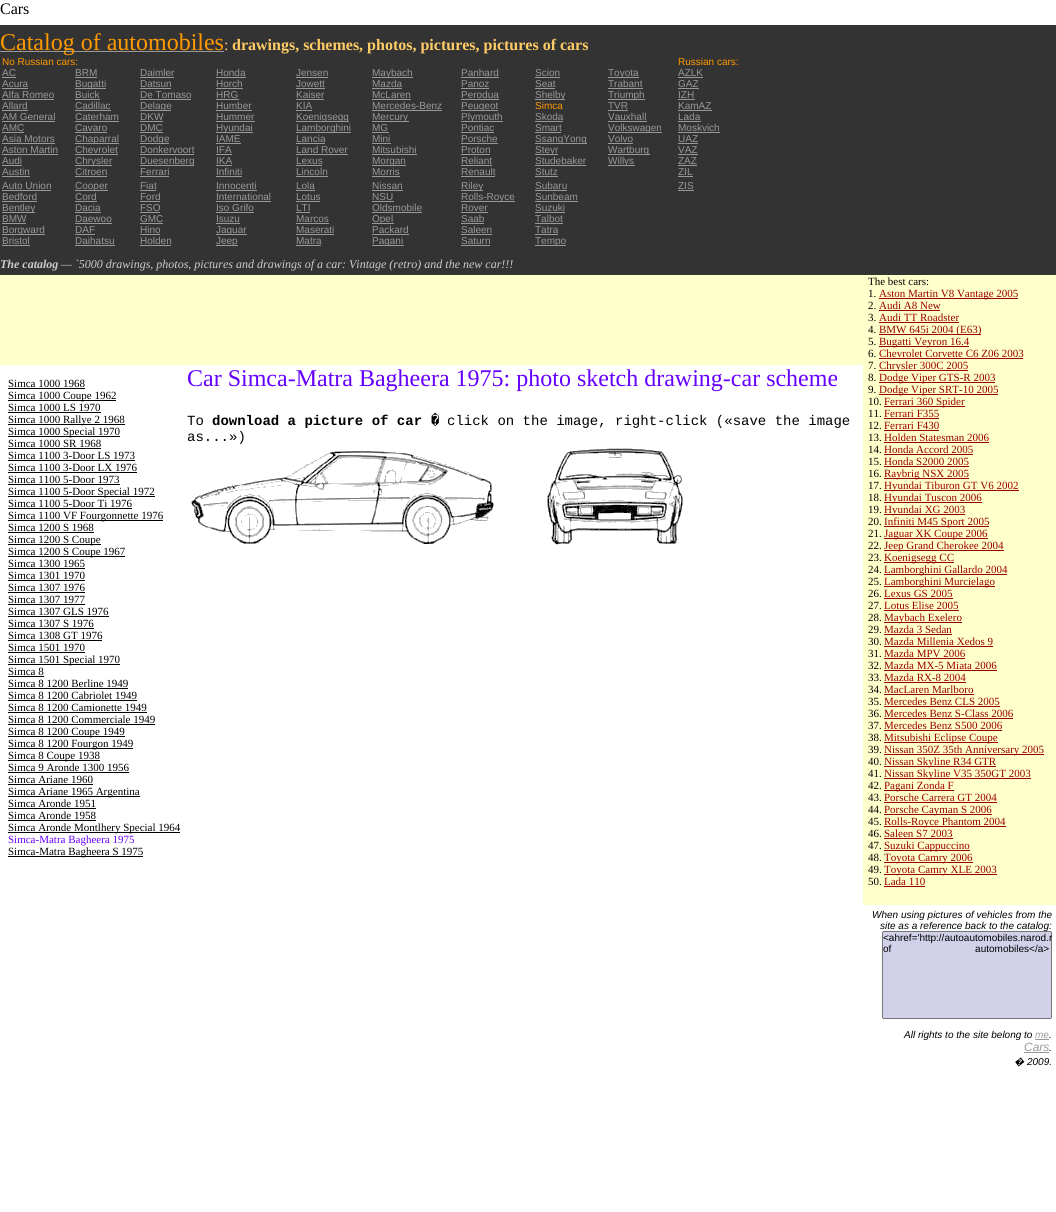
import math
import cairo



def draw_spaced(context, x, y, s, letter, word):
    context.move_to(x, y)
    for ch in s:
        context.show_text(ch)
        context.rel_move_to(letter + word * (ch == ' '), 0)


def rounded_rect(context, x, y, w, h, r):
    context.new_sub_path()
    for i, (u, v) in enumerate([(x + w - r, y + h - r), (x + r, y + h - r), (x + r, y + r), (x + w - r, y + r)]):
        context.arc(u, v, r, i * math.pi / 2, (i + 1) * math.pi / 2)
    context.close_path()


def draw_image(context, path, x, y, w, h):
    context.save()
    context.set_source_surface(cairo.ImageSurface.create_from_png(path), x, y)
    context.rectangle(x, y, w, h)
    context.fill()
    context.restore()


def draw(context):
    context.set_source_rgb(1, 1, 1)
    context.paint()
    context.set_source_rgb(51 / 255, 51 / 255, 51 / 255)
    context.rectangle(0, 25, 1056, 250)
    context.fill()
    context.set_source_rgb(153 / 255, 153 / 255, 153 / 255)
    context.rectangle(0, 51, 224, 1)
    context.fill()
    context.rectangle(2, 77, 14, 1)
    context.fill()
    context.rectangle(75, 77, 22, 1)
    context.fill()
    context.rectangle(140, 77, 34, 1)
    context.fill()
    context.rectangle(216, 77, 30, 1)
    context.fill()
    context.rectangle(296, 77, 32, 1)
    context.fill()
    context.rectangle(372, 77, 41, 1)
    context.fill()
    context.rectangle(461, 77, 38, 1)
    context.fill()
    context.rectangle(535, 77, 25, 1)
    context.fill()
    context.rectangle(608, 77, 31, 1)
    context.fill()
    context.rectangle(678, 77, 25, 1)
    context.fill()
    context.rectangle(2, 88, 26, 1)
    context.fill()
    context.rectangle(75, 88, 31, 1)
    context.fill()
    context.rectangle(140, 88, 31, 1)
    context.fill()
    context.rectangle(216, 88, 27, 1)
    context.fill()
    context.rectangle(296, 88, 29, 1)
    context.fill()
    context.rectangle(372, 88, 30, 1)
    context.fill()
    context.rectangle(461, 88, 28, 1)
    context.fill()
    context.rectangle(535, 88, 20, 1)
    context.fill()
    context.rectangle(608, 88, 35, 1)
    context.fill()
    context.rectangle(678, 88, 21, 1)
    context.fill()
    context.rectangle(2, 99, 52, 1)
    context.fill()
    context.rectangle(75, 99, 25, 1)
    context.fill()
    context.rectangle(140, 99, 51, 1)
    context.fill()
    context.rectangle(216, 99, 23, 1)
    context.fill()
    context.rectangle(296, 99, 28, 1)
    context.fill()
    context.rectangle(372, 99, 39, 1)
    context.fill()
    context.rectangle(461, 99, 38, 1)
    context.fill()
    context.rectangle(535, 99, 30, 1)
    context.fill()
    context.rectangle(608, 99, 37, 1)
    context.fill()
    context.rectangle(678, 99, 17, 1)
    context.fill()
    context.rectangle(2, 110, 26, 1)
    context.fill()
    context.rectangle(75, 110, 36, 1)
    context.fill()
    context.rectangle(140, 110, 31, 1)
    context.fill()
    context.rectangle(216, 110, 36, 1)
    context.fill()
    context.rectangle(296, 110, 16, 1)
    context.fill()
    context.rectangle(372, 110, 70, 1)
    context.fill()
    context.rectangle(461, 110, 37, 1)
    context.fill()
    context.rectangle(608, 110, 20, 1)
    context.fill()
    context.rectangle(678, 110, 34, 1)
    context.fill()
    context.rectangle(2, 121, 53, 1)
    context.fill()
    context.rectangle(75, 121, 44, 1)
    context.fill()
    context.rectangle(140, 121, 23, 1)
    context.fill()
    context.rectangle(216, 121, 39, 1)
    context.fill()
    context.rectangle(296, 121, 53, 1)
    context.fill()
    context.rectangle(372, 121, 37, 1)
    context.fill()
    context.rectangle(461, 121, 42, 1)
    context.fill()
    context.rectangle(535, 121, 28, 1)
    context.fill()
    context.rectangle(608, 121, 39, 1)
    context.fill()
    context.rectangle(678, 121, 23, 1)
    context.fill()
    context.rectangle(2, 132, 22, 1)
    context.fill()
    context.rectangle(75, 132, 32, 1)
    context.fill()
    context.rectangle(140, 132, 23, 1)
    context.fill()
    context.rectangle(216, 132, 37, 1)
    context.fill()
    context.rectangle(296, 132, 55, 1)
    context.fill()
    context.rectangle(372, 132, 17, 1)
    context.fill()
    context.rectangle(461, 132, 33, 1)
    context.fill()
    context.rectangle(535, 132, 26, 1)
    context.fill()
    context.rectangle(608, 132, 54, 1)
    context.fill()
    context.rectangle(678, 132, 42, 1)
    context.fill()
    context.rectangle(2, 143, 53, 1)
    context.fill()
    context.rectangle(75, 143, 44, 1)
    context.fill()
    context.rectangle(140, 143, 29, 1)
    context.fill()
    context.rectangle(216, 143, 25, 1)
    context.fill()
    context.rectangle(296, 143, 29, 1)
    context.fill()
    context.rectangle(372, 143, 19, 1)
    context.fill()
    context.rectangle(461, 143, 37, 1)
    context.fill()
    context.rectangle(535, 143, 52, 1)
    context.fill()
    context.rectangle(608, 143, 25, 1)
    context.fill()
    context.rectangle(678, 143, 20, 1)
    context.fill()
    context.rectangle(2, 154, 56, 1)
    context.fill()
    context.rectangle(75, 154, 43, 1)
    context.fill()
    context.rectangle(140, 154, 54, 1)
    context.fill()
    context.rectangle(216, 154, 16, 1)
    context.fill()
    context.rectangle(296, 154, 52, 1)
    context.fill()
    context.rectangle(372, 154, 45, 1)
    context.fill()
    context.rectangle(461, 154, 29, 1)
    context.fill()
    context.rectangle(535, 154, 23, 1)
    context.fill()
    context.rectangle(608, 154, 42, 1)
    context.fill()
    context.rectangle(678, 154, 20, 1)
    context.fill()
    context.rectangle(2, 165, 20, 1)
    context.fill()
    context.rectangle(75, 165, 37, 1)
    context.fill()
    context.rectangle(140, 165, 54, 1)
    context.fill()
    context.rectangle(216, 165, 16, 1)
    context.fill()
    context.rectangle(296, 165, 26, 1)
    context.fill()
    context.rectangle(372, 165, 34, 1)
    context.fill()
    context.rectangle(461, 165, 31, 1)
    context.fill()
    context.rectangle(535, 165, 51, 1)
    context.fill()
    context.rectangle(608, 165, 27, 1)
    context.fill()
    context.rectangle(678, 165, 19, 1)
    context.fill()
    context.rectangle(2, 176, 28, 1)
    context.fill()
    context.rectangle(75, 176, 32, 1)
    context.fill()
    context.rectangle(140, 176, 29, 1)
    context.fill()
    context.rectangle(216, 176, 26, 1)
    context.fill()
    context.rectangle(296, 176, 32, 1)
    context.fill()
    context.rectangle(372, 176, 28, 1)
    context.fill()
    context.rectangle(461, 176, 34, 1)
    context.fill()
    context.rectangle(535, 176, 23, 1)
    context.fill()
    context.rectangle(678, 176, 15, 1)
    context.fill()
    context.rectangle(2, 190, 49, 1)
    context.fill()
    context.rectangle(75, 190, 33, 1)
    context.fill()
    context.rectangle(140, 190, 16, 1)
    context.fill()
    context.rectangle(216, 190, 41, 1)
    context.fill()
    context.rectangle(296, 190, 19, 1)
    context.fill()
    context.rectangle(372, 190, 31, 1)
    context.fill()
    context.rectangle(461, 190, 22, 1)
    context.fill()
    context.rectangle(535, 190, 32, 1)
    context.fill()
    context.rectangle(678, 190, 16, 1)
    context.fill()
    context.rectangle(2, 201, 35, 1)
    context.fill()
    context.rectangle(75, 201, 22, 1)
    context.fill()
    context.rectangle(140, 201, 20, 1)
    context.fill()
    context.rectangle(216, 201, 55, 1)
    context.fill()
    context.rectangle(296, 201, 24, 1)
    context.fill()
    context.rectangle(372, 201, 22, 1)
    context.fill()
    context.rectangle(461, 201, 54, 1)
    context.fill()
    context.rectangle(535, 201, 43, 1)
    context.fill()
    context.rectangle(2, 212, 33, 1)
    context.fill()
    context.rectangle(75, 212, 26, 1)
    context.fill()
    context.rectangle(140, 212, 20, 1)
    context.fill()
    context.rectangle(216, 212, 38, 1)
    context.fill()
    context.rectangle(296, 212, 14, 1)
    context.fill()
    context.rectangle(372, 212, 50, 1)
    context.fill()
    context.rectangle(461, 212, 27, 1)
    context.fill()
    context.rectangle(535, 212, 30, 1)
    context.fill()
    context.rectangle(2, 223, 24, 1)
    context.fill()
    context.rectangle(75, 223, 37, 1)
    context.fill()
    context.rectangle(140, 223, 23, 1)
    context.fill()
    context.rectangle(216, 223, 24, 1)
    context.fill()
    context.rectangle(296, 223, 33, 1)
    context.fill()
    context.rectangle(372, 223, 22, 1)
    context.fill()
    context.rectangle(461, 223, 23, 1)
    context.fill()
    context.rectangle(535, 223, 28, 1)
    context.fill()
    context.rectangle(2, 234, 43, 1)
    context.fill()
    context.rectangle(75, 234, 20, 1)
    context.fill()
    context.rectangle(140, 234, 20, 1)
    context.fill()
    context.rectangle(216, 234, 31, 1)
    context.fill()
    context.rectangle(296, 234, 38, 1)
    context.fill()
    context.rectangle(372, 234, 37, 1)
    context.fill()
    context.rectangle(461, 234, 31, 1)
    context.fill()
    context.rectangle(535, 234, 23, 1)
    context.fill()
    context.rectangle(2, 245, 28, 1)
    context.fill()
    context.rectangle(75, 245, 40, 1)
    context.fill()
    context.rectangle(140, 245, 31, 1)
    context.fill()
    context.rectangle(216, 245, 22, 1)
    context.fill()
    context.rectangle(296, 245, 25, 1)
    context.fill()
    context.rectangle(372, 245, 32, 1)
    context.fill()
    context.rectangle(461, 245, 29, 1)
    context.fill()
    context.rectangle(535, 245, 31, 1)
    context.fill()
    context.set_source_rgb(0, 0, 0)
    context.rectangle(8, 388, 77, 1)
    context.fill()
    context.rectangle(8, 400, 108, 1)
    context.fill()
    context.rectangle(8, 412, 93, 1)
    context.fill()
    context.rectangle(8, 424, 117, 1)
    context.fill()
    context.rectangle(8, 436, 112, 1)
    context.fill()
    context.rectangle(8, 448, 93, 1)
    context.fill()
    context.rectangle(8, 460, 127, 1)
    context.fill()
    context.rectangle(8, 472, 129, 1)
    context.fill()
    context.rectangle(8, 484, 112, 1)
    context.fill()
    context.rectangle(8, 496, 147, 1)
    context.fill()
    context.rectangle(8, 508, 124, 1)
    context.fill()
    context.rectangle(8, 520, 155, 1)
    context.fill()
    context.rectangle(8, 532, 86, 1)
    context.fill()
    context.rectangle(8, 544, 93, 1)
    context.fill()
    context.rectangle(8, 556, 117, 1)
    context.fill()
    context.rectangle(8, 568, 77, 1)
    context.fill()
    context.rectangle(8, 580, 77, 1)
    context.fill()
    context.rectangle(8, 592, 77, 1)
    context.fill()
    context.rectangle(8, 604, 77, 1)
    context.fill()
    context.rectangle(8, 616, 101, 1)
    context.fill()
    context.rectangle(8, 628, 86, 1)
    context.fill()
    context.rectangle(8, 640, 94, 1)
    context.fill()
    context.rectangle(8, 652, 77, 1)
    context.fill()
    context.rectangle(8, 664, 112, 1)
    context.fill()
    context.rectangle(8, 676, 36, 1)
    context.fill()
    context.rectangle(8, 688, 120, 1)
    context.fill()
    context.rectangle(8, 700, 129, 1)
    context.fill()
    context.rectangle(8, 712, 139, 1)
    context.fill()
    context.rectangle(8, 724, 147, 1)
    context.fill()
    context.rectangle(8, 736, 117, 1)
    context.fill()
    context.rectangle(8, 748, 125, 1)
    context.fill()
    context.rectangle(8, 760, 92, 1)
    context.fill()
    context.rectangle(8, 772, 121, 1)
    context.fill()
    context.rectangle(8, 784, 85, 1)
    context.fill()
    context.rectangle(8, 796, 132, 1)
    context.fill()
    context.rectangle(8, 808, 88, 1)
    context.fill()
    context.rectangle(8, 820, 88, 1)
    context.fill()
    context.rectangle(8, 832, 172, 1)
    context.fill()
    context.rectangle(8, 856, 135, 1)
    context.fill()
    draw_image(context, "images/1.png", 191, 448, 492, 97)
    context.set_source_rgb(1, 1, 204 / 255)
    context.rectangle(0, 275, 863, 90)
    context.fill()
    context.rectangle(863, 275, 193, 630)
    context.fill()
    context.set_source_rgb(153 / 255, 0, 0)
    context.rectangle(879, 298, 139, 1)
    context.fill()
    context.rectangle(879, 310, 61, 1)
    context.fill()
    context.rectangle(879, 322, 80, 1)
    context.fill()
    context.rectangle(879, 334, 102, 1)
    context.fill()
    context.rectangle(879, 346, 90, 1)
    context.fill()
    context.rectangle(879, 358, 144, 1)
    context.fill()
    context.rectangle(879, 370, 89, 1)
    context.fill()
    context.rectangle(879, 382, 116, 1)
    context.fill()
    context.rectangle(879, 394, 119, 1)
    context.fill()
    context.rectangle(884, 406, 81, 1)
    context.fill()
    context.rectangle(884, 418, 55, 1)
    context.fill()
    context.rectangle(884, 430, 55, 1)
    context.fill()
    context.rectangle(884, 442, 105, 1)
    context.fill()
    context.rectangle(884, 454, 89, 1)
    context.fill()
    context.rectangle(884, 466, 85, 1)
    context.fill()
    context.rectangle(884, 478, 85, 1)
    context.fill()
    context.rectangle(884, 490, 135, 1)
    context.fill()
    context.rectangle(884, 502, 98, 1)
    context.fill()
    context.rectangle(884, 514, 81, 1)
    context.fill()
    context.rectangle(884, 526, 105, 1)
    context.fill()
    context.rectangle(884, 538, 104, 1)
    context.fill()
    context.rectangle(884, 550, 120, 1)
    context.fill()
    context.rectangle(884, 562, 70, 1)
    context.fill()
    context.rectangle(884, 574, 123, 1)
    context.fill()
    context.rectangle(884, 586, 111, 1)
    context.fill()
    context.rectangle(884, 598, 69, 1)
    context.fill()
    context.rectangle(884, 610, 75, 1)
    context.fill()
    context.rectangle(884, 622, 78, 1)
    context.fill()
    context.rectangle(884, 634, 68, 1)
    context.fill()
    context.rectangle(884, 646, 109, 1)
    context.fill()
    context.rectangle(884, 658, 81, 1)
    context.fill()
    context.rectangle(884, 670, 113, 1)
    context.fill()
    context.rectangle(884, 682, 82, 1)
    context.fill()
    context.rectangle(884, 694, 90, 1)
    context.fill()
    context.rectangle(884, 706, 116, 1)
    context.fill()
    context.rectangle(884, 718, 129, 1)
    context.fill()
    context.rectangle(884, 730, 118, 1)
    context.fill()
    context.rectangle(884, 742, 114, 1)
    context.fill()
    context.rectangle(884, 754, 160, 1)
    context.fill()
    context.rectangle(884, 766, 112, 1)
    context.fill()
    context.rectangle(884, 778, 147, 1)
    context.fill()
    context.rectangle(884, 790, 70, 1)
    context.fill()
    context.rectangle(884, 802, 113, 1)
    context.fill()
    context.rectangle(884, 814, 108, 1)
    context.fill()
    context.rectangle(884, 826, 122, 1)
    context.fill()
    context.rectangle(884, 838, 69, 1)
    context.fill()
    context.rectangle(884, 850, 86, 1)
    context.fill()
    context.rectangle(884, 862, 89, 1)
    context.fill()
    context.rectangle(884, 874, 113, 1)
    context.fill()
    context.rectangle(884, 886, 41, 1)
    context.fill()
    context.set_source_rgb(153 / 255, 153 / 255, 153 / 255)
    context.rectangle(1035, 1039, 14, 1)
    context.fill()
    context.rectangle(1024, 1052, 25, 1)
    context.fill()
    context.select_font_face("Liberation Serif")
    context.set_font_size(16)
    context.set_source_rgb(0, 0, 0)
    context.move_to(0, 14)
    context.show_text("Cars")
    context.set_font_size(24)
    context.set_source_rgb(1, 153 / 255, 0)
    context.move_to(0, 50)
    context.show_text("Catalog of automobiles")
    context.set_font_size(16)
    context.set_source_rgb(1, 204 / 255, 102 / 255)
    context.move_to(224, 50)
    context.show_text(":")
    context.select_font_face("Liberation Serif", cairo.FontSlant.NORMAL, cairo.FontWeight.BOLD)
    context.move_to(232, 50)
    context.show_text("drawings, schemes, photos, pictures, pictures of cars")
    context.select_font_face("Liberation Sans")
    context.set_font_size(10)
    context.set_source_rgb(1, 153 / 255, 0)
    context.move_to(2, 65)
    context.show_text("No Russian cars:")
    context.move_to(678, 65)
    context.show_text("Russian cars:")
    context.set_source_rgb(153 / 255, 153 / 255, 153 / 255)
    context.move_to(2, 76)
    context.show_text("AC")
    context.move_to(75, 76)
    context.show_text("BRM")
    context.move_to(140, 76)
    context.show_text("Daimler")
    context.move_to(216, 76)
    context.show_text("Honda")
    context.move_to(296, 76)
    context.show_text("Jensen")
    context.move_to(372, 76)
    context.show_text("Maybach")
    context.move_to(461, 76)
    context.show_text("Panhard")
    context.move_to(535, 76)
    context.show_text("Scion")
    context.move_to(608, 76)
    context.show_text("Toyota")
    context.move_to(678, 76)
    context.show_text("AZLK")
    context.move_to(2, 87)
    context.show_text("Acura")
    context.move_to(75, 87)
    context.show_text("Bugatti")
    context.move_to(140, 87)
    context.show_text("Datsun")
    context.move_to(216, 87)
    context.show_text("Horch")
    context.move_to(296, 87)
    context.show_text("Jowett")
    context.move_to(372, 87)
    context.show_text("Mazda")
    context.move_to(461, 87)
    context.show_text("Panoz")
    context.move_to(535, 87)
    context.show_text("Seat")
    context.move_to(608, 87)
    context.show_text("Trabant")
    context.move_to(678, 87)
    context.show_text("GAZ")
    context.move_to(2, 98)
    context.show_text("Alfa Romeo")
    context.move_to(75, 98)
    context.show_text("Buick")
    context.move_to(140, 98)
    context.show_text("De Tomaso")
    context.move_to(216, 98)
    context.show_text("HRG")
    context.move_to(296, 98)
    context.show_text("Kaiser")
    context.move_to(372, 98)
    context.show_text("McLaren")
    context.move_to(461, 98)
    context.show_text("Perodua")
    context.move_to(535, 98)
    context.show_text("Shelby")
    context.move_to(608, 98)
    context.show_text("Triumph")
    context.move_to(678, 98)
    context.show_text("IZH")
    context.move_to(2, 109)
    context.show_text("Allard")
    context.move_to(75, 109)
    context.show_text("Cadillac")
    context.move_to(140, 109)
    context.show_text("Delage")
    context.move_to(216, 109)
    context.show_text("Humber")
    context.move_to(296, 109)
    context.show_text("KIA")
    context.move_to(372, 109)
    context.show_text("Mercedes-Benz")
    context.move_to(461, 109)
    context.show_text("Peugeot")
    context.set_source_rgb(1, 153 / 255, 0)
    context.move_to(535, 109)
    context.show_text("Simca")
    context.set_source_rgb(153 / 255, 153 / 255, 153 / 255)
    context.move_to(608, 109)
    context.show_text("TVR")
    context.move_to(678, 109)
    context.show_text("KamAZ")
    context.move_to(2, 120)
    context.show_text("AM General")
    context.move_to(75, 120)
    context.show_text("Caterham")
    context.move_to(140, 120)
    context.show_text("DKW")
    context.move_to(216, 120)
    context.show_text("Hummer")
    context.move_to(296, 120)
    context.show_text("Koenigsegg")
    context.move_to(372, 120)
    context.show_text("Mercury")
    context.move_to(461, 120)
    context.show_text("Plymouth")
    context.move_to(535, 120)
    context.show_text("Skoda")
    context.move_to(608, 120)
    context.show_text("Vauxhall")
    context.move_to(678, 120)
    context.show_text("Lada")
    context.move_to(2, 131)
    context.show_text("AMC")
    context.move_to(75, 131)
    context.show_text("Cavaro")
    context.move_to(140, 131)
    context.show_text("DMC")
    context.move_to(216, 131)
    context.show_text("Hyundai")
    context.move_to(296, 131)
    context.show_text("Lamborghini")
    context.move_to(372, 131)
    context.show_text("MG")
    context.move_to(461, 131)
    context.show_text("Pontiac")
    context.move_to(535, 131)
    context.show_text("Smart")
    context.move_to(608, 131)
    context.show_text("Volkswagen")
    context.move_to(678, 131)
    context.show_text("Moskvich")
    context.move_to(2, 142)
    context.show_text("Asia Motors")
    context.move_to(75, 142)
    context.show_text("Chaparral")
    context.move_to(140, 142)
    context.show_text("Dodge")
    context.move_to(216, 142)
    context.show_text("IAME")
    context.move_to(296, 142)
    context.show_text("Lancia")
    context.move_to(372, 142)
    context.show_text("Mini")
    context.move_to(461, 142)
    context.show_text("Porsche")
    context.move_to(535, 142)
    context.show_text("SsangYong")
    context.move_to(608, 142)
    context.show_text("Volvo")
    context.move_to(678, 142)
    context.show_text("UAZ")
    context.move_to(2, 153)
    context.show_text("Aston Martin")
    context.move_to(75, 153)
    context.show_text("Chevrolet")
    context.move_to(140, 153)
    context.show_text("Donkervoort")
    context.move_to(216, 153)
    context.show_text("IFA")
    context.move_to(296, 153)
    context.show_text("Land Rover")
    context.move_to(372, 153)
    context.show_text("Mitsubishi")
    context.move_to(461, 153)
    context.show_text("Proton")
    context.move_to(535, 153)
    context.show_text("Steyr")
    context.move_to(608, 153)
    context.show_text("Wartburg")
    context.move_to(678, 153)
    context.show_text("VAZ")
    context.move_to(2, 164)
    context.show_text("Audi")
    context.move_to(75, 164)
    context.show_text("Chrysler")
    context.move_to(140, 164)
    context.show_text("Duesenberg")
    context.move_to(216, 164)
    context.show_text("IKA")
    context.move_to(296, 164)
    context.show_text("Lexus")
    context.move_to(372, 164)
    context.show_text("Morgan")
    context.move_to(461, 164)
    context.show_text("Reliant")
    context.move_to(535, 164)
    context.show_text("Studebaker")
    context.move_to(608, 164)
    context.show_text("Willys")
    context.move_to(678, 164)
    context.show_text("ZAZ")
    context.move_to(2, 175)
    context.show_text("Austin")
    context.move_to(75, 175)
    context.show_text("Citroen")
    context.move_to(140, 175)
    context.show_text("Ferrari")
    context.move_to(216, 175)
    context.show_text("Infiniti")
    context.move_to(296, 175)
    context.show_text("Lincoln")
    context.move_to(372, 175)
    context.show_text("Morris")
    context.move_to(461, 175)
    context.show_text("Renault")
    context.move_to(535, 175)
    context.show_text("Stutz")
    context.move_to(678, 175)
    context.show_text("ZIL")
    context.move_to(2, 189)
    context.show_text("Auto Union")
    context.move_to(75, 189)
    context.show_text("Cooper")
    context.move_to(140, 189)
    context.show_text("Fiat")
    context.move_to(216, 189)
    context.show_text("Innocenti")
    context.move_to(296, 189)
    context.show_text("Lola")
    context.move_to(372, 189)
    context.show_text("Nissan")
    context.move_to(461, 189)
    context.show_text("Riley")
    context.move_to(535, 189)
    context.show_text("Subaru")
    context.move_to(678, 189)
    context.show_text("ZIS")
    context.move_to(2, 200)
    context.show_text("Bedford")
    context.move_to(75, 200)
    context.show_text("Cord")
    context.move_to(140, 200)
    context.show_text("Ford")
    context.move_to(216, 200)
    context.show_text("International")
    context.move_to(296, 200)
    context.show_text("Lotus")
    context.move_to(372, 200)
    context.show_text("NSU")
    context.move_to(461, 200)
    context.show_text("Rolls-Royce")
    context.move_to(535, 200)
    context.show_text("Sunbeam")
    context.move_to(2, 211)
    context.show_text("Bentley")
    context.move_to(75, 211)
    context.show_text("Dacia")
    context.move_to(140, 211)
    context.show_text("FSO")
    context.move_to(216, 211)
    context.show_text("Iso Grifo")
    context.move_to(296, 211)
    context.show_text("LTI")
    context.move_to(372, 211)
    context.show_text("Oldsmobile")
    context.move_to(461, 211)
    context.show_text("Rover")
    context.move_to(535, 211)
    context.show_text("Suzuki")
    context.move_to(2, 222)
    context.show_text("BMW")
    context.move_to(75, 222)
    context.show_text("Daewoo")
    context.move_to(140, 222)
    context.show_text("GMC")
    context.move_to(216, 222)
    context.show_text("Isuzu")
    context.move_to(296, 222)
    context.show_text("Marcos")
    context.move_to(372, 222)
    context.show_text("Opel")
    context.move_to(461, 222)
    context.show_text("Saab")
    context.move_to(535, 222)
    context.show_text("Talbot")
    context.move_to(2, 233)
    context.show_text("Borgward")
    context.move_to(75, 233)
    context.show_text("DAF")
    context.move_to(140, 233)
    context.show_text("Hino")
    context.move_to(216, 233)
    context.show_text("Jaguar")
    context.move_to(296, 233)
    context.show_text("Maserati")
    context.move_to(372, 233)
    context.show_text("Packard")
    context.move_to(461, 233)
    context.show_text("Saleen")
    context.move_to(535, 233)
    context.show_text("Tatra")
    context.move_to(2, 244)
    context.show_text("Bristol")
    context.move_to(75, 244)
    context.show_text("Daihatsu")
    context.move_to(140, 244)
    context.show_text("Holden")
    context.move_to(216, 244)
    context.show_text("Jeep")
    context.move_to(296, 244)
    context.show_text("Matra")
    context.move_to(372, 244)
    context.show_text("Pagani")
    context.move_to(461, 244)
    context.show_text("Saturn")
    context.move_to(535, 244)
    context.show_text("Tempo")
    context.select_font_face("Liberation Serif", cairo.FontSlant.ITALIC, cairo.FontWeight.BOLD)
    context.set_font_size(12)
    context.set_source_rgb(204 / 255, 204 / 255, 204 / 255)
    context.move_to(0, 268)
    context.show_text("The catalog")
    context.select_font_face("Liberation Serif", cairo.FontSlant.ITALIC)
    context.move_to(61, 268)
    context.show_text("— `5000 drawings, photos, pictures and drawings of a car: Vintage (retro) and the new car!!!")
    context.select_font_face("Liberation Serif")
    context.set_font_size(11)
    context.set_source_rgb(0, 0, 0)
    context.move_to(8, 387)
    context.show_text("Simca 1000 1968")
    context.move_to(8, 399)
    context.show_text("Simca 1000 Coupe 1962")
    context.move_to(8, 411)
    context.show_text("Simca 1000 LS 1970")
    context.move_to(8, 423)
    context.show_text("Simca 1000 Rallye 2 1968")
    context.move_to(8, 435)
    context.show_text("Simca 1000 Special 1970")
    context.move_to(8, 447)
    context.show_text("Simca 1000 SR 1968")
    context.move_to(8, 459)
    context.show_text("Simca 1100 3-Door LS 1973")
    context.move_to(8, 471)
    context.show_text("Simca 1100 3-Door LX 1976")
    context.move_to(8, 483)
    context.show_text("Simca 1100 5-Door 1973")
    context.move_to(8, 495)
    context.show_text("Simca 1100 5-Door Special 1972")
    context.move_to(8, 507)
    context.show_text("Simca 1100 5-Door Ti 1976")
    context.move_to(8, 519)
    context.show_text("Simca 1100 VF Fourgonnette 1976")
    context.move_to(8, 531)
    context.show_text("Simca 1200 S 1968")
    context.move_to(8, 543)
    context.show_text("Simca 1200 S Coupe")
    context.move_to(8, 555)
    context.show_text("Simca 1200 S Coupe 1967")
    context.move_to(8, 567)
    context.show_text("Simca 1300 1965")
    context.move_to(8, 579)
    context.show_text("Simca 1301 1970")
    context.move_to(8, 591)
    context.show_text("Simca 1307 1976")
    context.move_to(8, 603)
    context.show_text("Simca 1307 1977")
    context.move_to(8, 615)
    context.show_text("Simca 1307 GLS 1976")
    context.move_to(8, 627)
    context.show_text("Simca 1307 S 1976")
    context.move_to(8, 639)
    context.show_text("Simca 1308 GT 1976")
    context.move_to(8, 651)
    context.show_text("Simca 1501 1970")
    context.move_to(8, 663)
    context.show_text("Simca 1501 Special 1970")
    context.move_to(8, 675)
    context.show_text("Simca 8")
    context.move_to(8, 687)
    context.show_text("Simca 8 1200 Berline 1949")
    context.move_to(8, 699)
    context.show_text("Simca 8 1200 Cabriolet 1949")
    context.move_to(8, 711)
    context.show_text("Simca 8 1200 Camionette 1949")
    context.move_to(8, 723)
    context.show_text("Simca 8 1200 Commerciale 1949")
    context.move_to(8, 735)
    context.show_text("Simca 8 1200 Coupe 1949")
    context.move_to(8, 747)
    context.show_text("Simca 8 1200 Fourgon 1949")
    context.move_to(8, 759)
    context.show_text("Simca 8 Coupe 1938")
    context.move_to(8, 771)
    context.show_text("Simca 9 Aronde 1300 1956")
    context.move_to(8, 783)
    context.show_text("Simca Ariane 1960")
    context.move_to(8, 795)
    context.show_text("Simca Ariane 1965 Argentina")
    context.move_to(8, 807)
    context.show_text("Simca Aronde 1951")
    context.move_to(8, 819)
    context.show_text("Simca Aronde 1958")
    context.move_to(8, 831)
    context.show_text("Simca Aronde Montlhery Special 1964")
    context.set_source_rgb(102 / 255, 0, 1)
    context.move_to(8, 843)
    context.show_text("Simca-Matra Bagheera 1975")
    context.set_source_rgb(0, 0, 0)
    context.move_to(8, 855)
    context.show_text("Simca-Matra Bagheera S 1975")
    context.set_font_size(24)
    context.set_source_rgb(102 / 255, 0, 1)
    context.move_to(187, 386)
    context.show_text("Car Simca-Matra Bagheera 1975: photo sketch drawing-car scheme")
    context.select_font_face("Liberation Mono")
    context.set_font_size(14)
    context.set_source_rgb(0, 0, 0)
    context.move_to(187, 425)
    context.show_text("To")
    context.select_font_face("Liberation Mono", cairo.FontSlant.NORMAL, cairo.FontWeight.BOLD)
    context.move_to(212, 425)
    context.show_text("download a picture of car")
    context.select_font_face("DejaVu Sans Mono")
    context.move_to(431, 425)
    context.show_text("�")
    context.select_font_face("Liberation Mono")
    context.move_to(447, 425)
    context.show_text("click on the image, right-click («save the image")
    context.move_to(187, 441)
    context.show_text("as...»)")
    context.select_font_face("Liberation Serif")
    context.set_font_size(11)
    context.move_to(868, 285)
    context.show_text("The best cars:")
    context.move_to(868, 297)
    context.show_text("1.")
    context.set_source_rgb(153 / 255, 0, 0)
    context.move_to(879, 297)
    context.show_text("Aston Martin V8 Vantage 2005")
    context.set_source_rgb(0, 0, 0)
    context.move_to(868, 309)
    context.show_text("2.")
    context.set_source_rgb(153 / 255, 0, 0)
    context.move_to(879, 309)
    context.show_text("Audi A8 New")
    context.set_source_rgb(0, 0, 0)
    context.move_to(868, 321)
    context.show_text("3.")
    context.set_source_rgb(153 / 255, 0, 0)
    context.move_to(879, 321)
    context.show_text("Audi TT Roadster")
    context.set_source_rgb(0, 0, 0)
    context.move_to(868, 333)
    context.show_text("4.")
    context.set_source_rgb(153 / 255, 0, 0)
    context.move_to(879, 333)
    context.show_text("BMW 645i 2004 (E63)")
    context.set_source_rgb(0, 0, 0)
    context.move_to(868, 345)
    context.show_text("5.")
    context.set_source_rgb(153 / 255, 0, 0)
    context.move_to(879, 345)
    context.show_text("Bugatti Veyron 16.4")
    context.set_source_rgb(0, 0, 0)
    context.move_to(868, 357)
    context.show_text("6.")
    context.set_source_rgb(153 / 255, 0, 0)
    context.move_to(879, 357)
    context.show_text("Chevrolet Corvette C6 Z06 2003")
    context.set_source_rgb(0, 0, 0)
    context.move_to(868, 369)
    context.show_text("7.")
    context.set_source_rgb(153 / 255, 0, 0)
    context.move_to(879, 369)
    context.show_text("Chrysler 300C 2005")
    context.set_source_rgb(0, 0, 0)
    context.move_to(868, 381)
    context.show_text("8.")
    context.set_source_rgb(153 / 255, 0, 0)
    context.move_to(879, 381)
    context.show_text("Dodge Viper GTS-R 2003")
    context.set_source_rgb(0, 0, 0)
    context.move_to(868, 393)
    context.show_text("9.")
    context.set_source_rgb(153 / 255, 0, 0)
    context.move_to(879, 393)
    context.show_text("Dodge Viper SRT-10 2005")
    context.set_source_rgb(0, 0, 0)
    context.move_to(868, 405)
    context.show_text("10.")
    context.set_source_rgb(153 / 255, 0, 0)
    context.move_to(884, 405)
    context.show_text("Ferrari 360 Spider")
    context.set_source_rgb(0, 0, 0)
    context.move_to(868, 417)
    context.show_text("11.")
    context.set_source_rgb(153 / 255, 0, 0)
    context.move_to(884, 417)
    context.show_text("Ferrari F355")
    context.set_source_rgb(0, 0, 0)
    context.move_to(868, 429)
    context.show_text("12.")
    context.set_source_rgb(153 / 255, 0, 0)
    context.move_to(884, 429)
    context.show_text("Ferrari F430")
    context.set_source_rgb(0, 0, 0)
    context.move_to(868, 441)
    context.show_text("13.")
    context.set_source_rgb(153 / 255, 0, 0)
    context.move_to(884, 441)
    context.show_text("Holden Statesman 2006")
    context.set_source_rgb(0, 0, 0)
    context.move_to(868, 453)
    context.show_text("14.")
    context.set_source_rgb(153 / 255, 0, 0)
    context.move_to(884, 453)
    context.show_text("Honda Accord 2005")
    context.set_source_rgb(0, 0, 0)
    context.move_to(868, 465)
    context.show_text("15.")
    context.set_source_rgb(153 / 255, 0, 0)
    context.move_to(884, 465)
    context.show_text("Honda S2000 2005")
    context.set_source_rgb(0, 0, 0)
    context.move_to(868, 477)
    context.show_text("16.")
    context.set_source_rgb(153 / 255, 0, 0)
    context.move_to(884, 477)
    context.show_text("Raybrig NSX 2005")
    context.set_source_rgb(0, 0, 0)
    context.move_to(868, 489)
    context.show_text("17.")
    context.set_source_rgb(153 / 255, 0, 0)
    context.move_to(884, 489)
    context.show_text("Hyundai Tiburon GT V6 2002")
    context.set_source_rgb(0, 0, 0)
    context.move_to(868, 501)
    context.show_text("18.")
    context.set_source_rgb(153 / 255, 0, 0)
    context.move_to(884, 501)
    context.show_text("Hyundai Tuscon 2006")
    context.set_source_rgb(0, 0, 0)
    context.move_to(868, 513)
    context.show_text("19.")
    context.set_source_rgb(153 / 255, 0, 0)
    context.move_to(884, 513)
    context.show_text("Hyundai XG 2003")
    context.set_source_rgb(0, 0, 0)
    context.move_to(868, 525)
    context.show_text("20.")
    context.set_source_rgb(153 / 255, 0, 0)
    context.move_to(884, 525)
    context.show_text("Infiniti M45 Sport 2005")
    context.set_source_rgb(0, 0, 0)
    context.move_to(868, 537)
    context.show_text("21.")
    context.set_source_rgb(153 / 255, 0, 0)
    context.move_to(884, 537)
    context.show_text("Jaguar XK Coupe 2006")
    context.set_source_rgb(0, 0, 0)
    context.move_to(868, 549)
    context.show_text("22.")
    context.set_source_rgb(153 / 255, 0, 0)
    context.move_to(884, 549)
    context.show_text("Jeep Grand Cherokee 2004")
    context.set_source_rgb(0, 0, 0)
    context.move_to(868, 561)
    context.show_text("23.")
    context.set_source_rgb(153 / 255, 0, 0)
    context.move_to(884, 561)
    context.show_text("Koenigsegg CC")
    context.set_source_rgb(0, 0, 0)
    context.move_to(868, 573)
    context.show_text("24.")
    context.set_source_rgb(153 / 255, 0, 0)
    context.move_to(884, 573)
    context.show_text("Lamborghini Gallardo 2004")
    context.set_source_rgb(0, 0, 0)
    context.move_to(868, 585)
    context.show_text("25.")
    context.set_source_rgb(153 / 255, 0, 0)
    context.move_to(884, 585)
    context.show_text("Lamborghini Murcielago")
    context.set_source_rgb(0, 0, 0)
    context.move_to(868, 597)
    context.show_text("26.")
    context.set_source_rgb(153 / 255, 0, 0)
    context.move_to(884, 597)
    context.show_text("Lexus GS 2005")
    context.set_source_rgb(0, 0, 0)
    context.move_to(868, 609)
    context.show_text("27.")
    context.set_source_rgb(153 / 255, 0, 0)
    context.move_to(884, 609)
    context.show_text("Lotus Elise 2005")
    context.set_source_rgb(0, 0, 0)
    context.move_to(868, 621)
    context.show_text("28.")
    context.set_source_rgb(153 / 255, 0, 0)
    context.move_to(884, 621)
    context.show_text("Maybach Exelero")
    context.set_source_rgb(0, 0, 0)
    context.move_to(868, 633)
    context.show_text("29.")
    context.set_source_rgb(153 / 255, 0, 0)
    context.move_to(884, 633)
    context.show_text("Mazda 3 Sedan")
    context.set_source_rgb(0, 0, 0)
    context.move_to(868, 645)
    context.show_text("30.")
    context.set_source_rgb(153 / 255, 0, 0)
    context.move_to(884, 645)
    context.show_text("Mazda Millenia Xedos 9")
    context.set_source_rgb(0, 0, 0)
    context.move_to(868, 657)
    context.show_text("31.")
    context.set_source_rgb(153 / 255, 0, 0)
    context.move_to(884, 657)
    context.show_text("Mazda MPV 2006")
    context.set_source_rgb(0, 0, 0)
    context.move_to(868, 669)
    context.show_text("32.")
    context.set_source_rgb(153 / 255, 0, 0)
    context.move_to(884, 669)
    context.show_text("Mazda MX-5 Miata 2006")
    context.set_source_rgb(0, 0, 0)
    context.move_to(868, 681)
    context.show_text("33.")
    context.set_source_rgb(153 / 255, 0, 0)
    context.move_to(884, 681)
    context.show_text("Mazda RX-8 2004")
    context.set_source_rgb(0, 0, 0)
    context.move_to(868, 693)
    context.show_text("34.")
    context.set_source_rgb(153 / 255, 0, 0)
    context.move_to(884, 693)
    context.show_text("MacLaren Marlboro")
    context.set_source_rgb(0, 0, 0)
    context.move_to(868, 705)
    context.show_text("35.")
    context.set_source_rgb(153 / 255, 0, 0)
    context.move_to(884, 705)
    context.show_text("Mercedes Benz CLS 2005")
    context.set_source_rgb(0, 0, 0)
    context.move_to(868, 717)
    context.show_text("36.")
    context.set_source_rgb(153 / 255, 0, 0)
    context.move_to(884, 717)
    context.show_text("Mercedes Benz S-Class 2006")
    context.set_source_rgb(0, 0, 0)
    context.move_to(868, 729)
    context.show_text("37.")
    context.set_source_rgb(153 / 255, 0, 0)
    context.move_to(884, 729)
    context.show_text("Mercedes Benz S500 2006")
    context.set_source_rgb(0, 0, 0)
    context.move_to(868, 741)
    context.show_text("38.")
    context.set_source_rgb(153 / 255, 0, 0)
    context.move_to(884, 741)
    context.show_text("Mitsubishi Eclipse Coupe")
    context.set_source_rgb(0, 0, 0)
    context.move_to(868, 753)
    context.show_text("39.")
    context.set_source_rgb(153 / 255, 0, 0)
    context.move_to(884, 753)
    context.show_text("Nissan 350Z 35th Anniversary 2005")
    context.set_source_rgb(0, 0, 0)
    context.move_to(868, 765)
    context.show_text("40.")
    context.set_source_rgb(153 / 255, 0, 0)
    context.move_to(884, 765)
    context.show_text("Nissan Skyline R34 GTR")
    context.set_source_rgb(0, 0, 0)
    context.move_to(868, 777)
    context.show_text("41.")
    context.set_source_rgb(153 / 255, 0, 0)
    context.move_to(884, 777)
    context.show_text("Nissan Skyline V35 350GT 2003")
    context.set_source_rgb(0, 0, 0)
    context.move_to(868, 789)
    context.show_text("42.")
    context.set_source_rgb(153 / 255, 0, 0)
    context.move_to(884, 789)
    context.show_text("Pagani Zonda F")
    context.set_source_rgb(0, 0, 0)
    context.move_to(868, 801)
    context.show_text("43.")
    context.set_source_rgb(153 / 255, 0, 0)
    context.move_to(884, 801)
    context.show_text("Porsche Carrera GT 2004")
    context.set_source_rgb(0, 0, 0)
    context.move_to(868, 813)
    context.show_text("44.")
    context.set_source_rgb(153 / 255, 0, 0)
    context.move_to(884, 813)
    context.show_text("Porsche Cayman S 2006")
    context.set_source_rgb(0, 0, 0)
    context.move_to(868, 825)
    context.show_text("45.")
    context.set_source_rgb(153 / 255, 0, 0)
    context.move_to(884, 825)
    context.show_text("Rolls-Royce Phantom 2004")
    context.set_source_rgb(0, 0, 0)
    context.move_to(868, 837)
    context.show_text("46.")
    context.set_source_rgb(153 / 255, 0, 0)
    context.move_to(884, 837)
    context.show_text("Saleen S7 2003")
    context.set_source_rgb(0, 0, 0)
    context.move_to(868, 849)
    context.show_text("47.")
    context.set_source_rgb(153 / 255, 0, 0)
    context.move_to(884, 849)
    context.show_text("Suzuki Cappuccino")
    context.set_source_rgb(0, 0, 0)
    context.move_to(868, 861)
    context.show_text("48.")
    context.set_source_rgb(153 / 255, 0, 0)
    context.move_to(884, 861)
    context.show_text("Toyota Camry 2006")
    context.set_source_rgb(0, 0, 0)
    context.move_to(868, 873)
    context.show_text("49.")
    context.set_source_rgb(153 / 255, 0, 0)
    context.move_to(884, 873)
    context.show_text("Toyota Camry XLE 2003")
    context.set_source_rgb(0, 0, 0)
    context.move_to(868, 885)
    context.show_text("50.")
    context.set_source_rgb(153 / 255, 0, 0)
    context.move_to(884, 885)
    context.show_text("Lada 110")
    context.select_font_face("Liberation Sans", cairo.FontSlant.ITALIC)
    context.set_font_size(10)
    context.set_source_rgb(0, 0, 0)
    context.move_to(872, 918)
    context.show_text("When using pictures of vehicles from the")
    context.move_to(880, 929)
    context.show_text("site as a reference back to the catalog:")
    context.set_source_rgb(209 / 255, 209 / 255, 233 / 255)
    rounded_rect(context, 882.5, 931.5, 169, 87, 1.5)
    context.fill_preserve()
    context.set_source_rgb(118 / 255, 118 / 255, 118 / 255)
    context.set_line_width(1)
    context.stroke()
    context.select_font_face("Liberation Sans")
    context.set_source_rgb(0, 0, 0)
    context.move_to(883, 941)
    context.show_text("<ahref='http://autoautomobiles.narod.r")
    draw_spaced(context, 883, 952, "of automobiles</a>", 0, 81)
    context.select_font_face("Liberation Sans", cairo.FontSlant.ITALIC)
    context.move_to(904, 1038)
    context.show_text("All rights to the site belong to")
    context.set_source_rgb(153 / 255, 153 / 255, 153 / 255)
    context.move_to(1035, 1038)
    context.show_text("me")
    context.set_source_rgb(0, 0, 0)
    context.move_to(1049, 1038)
    context.show_text(".")
    context.set_font_size(12)
    context.set_source_rgb(153 / 255, 153 / 255, 153 / 255)
    context.move_to(1024, 1051)
    context.show_text("Cars")
    context.set_font_size(10)
    context.set_source_rgb(0, 0, 0)
    context.move_to(1049, 1051)
    context.show_text(".")
    context.select_font_face("Noto Sans", cairo.FontSlant.ITALIC)
    context.move_to(1014, 1065)
    context.show_text("�")
    context.select_font_face("Liberation Sans", cairo.FontSlant.ITALIC)
    context.move_to(1027, 1065)
    context.show_text("2009.")


surface = cairo.ImageSurface(cairo.Format.RGB24, 1056, 1212)
context = cairo.Context(surface)
options = cairo.FontOptions()
options.set_hint_metrics(cairo.HintMetrics.OFF)
options.set_hint_style(cairo.HintStyle.NONE)
context.set_font_options(options)
context.set_miter_limit(4)
draw(context)
surface.write_to_png("out.png")
